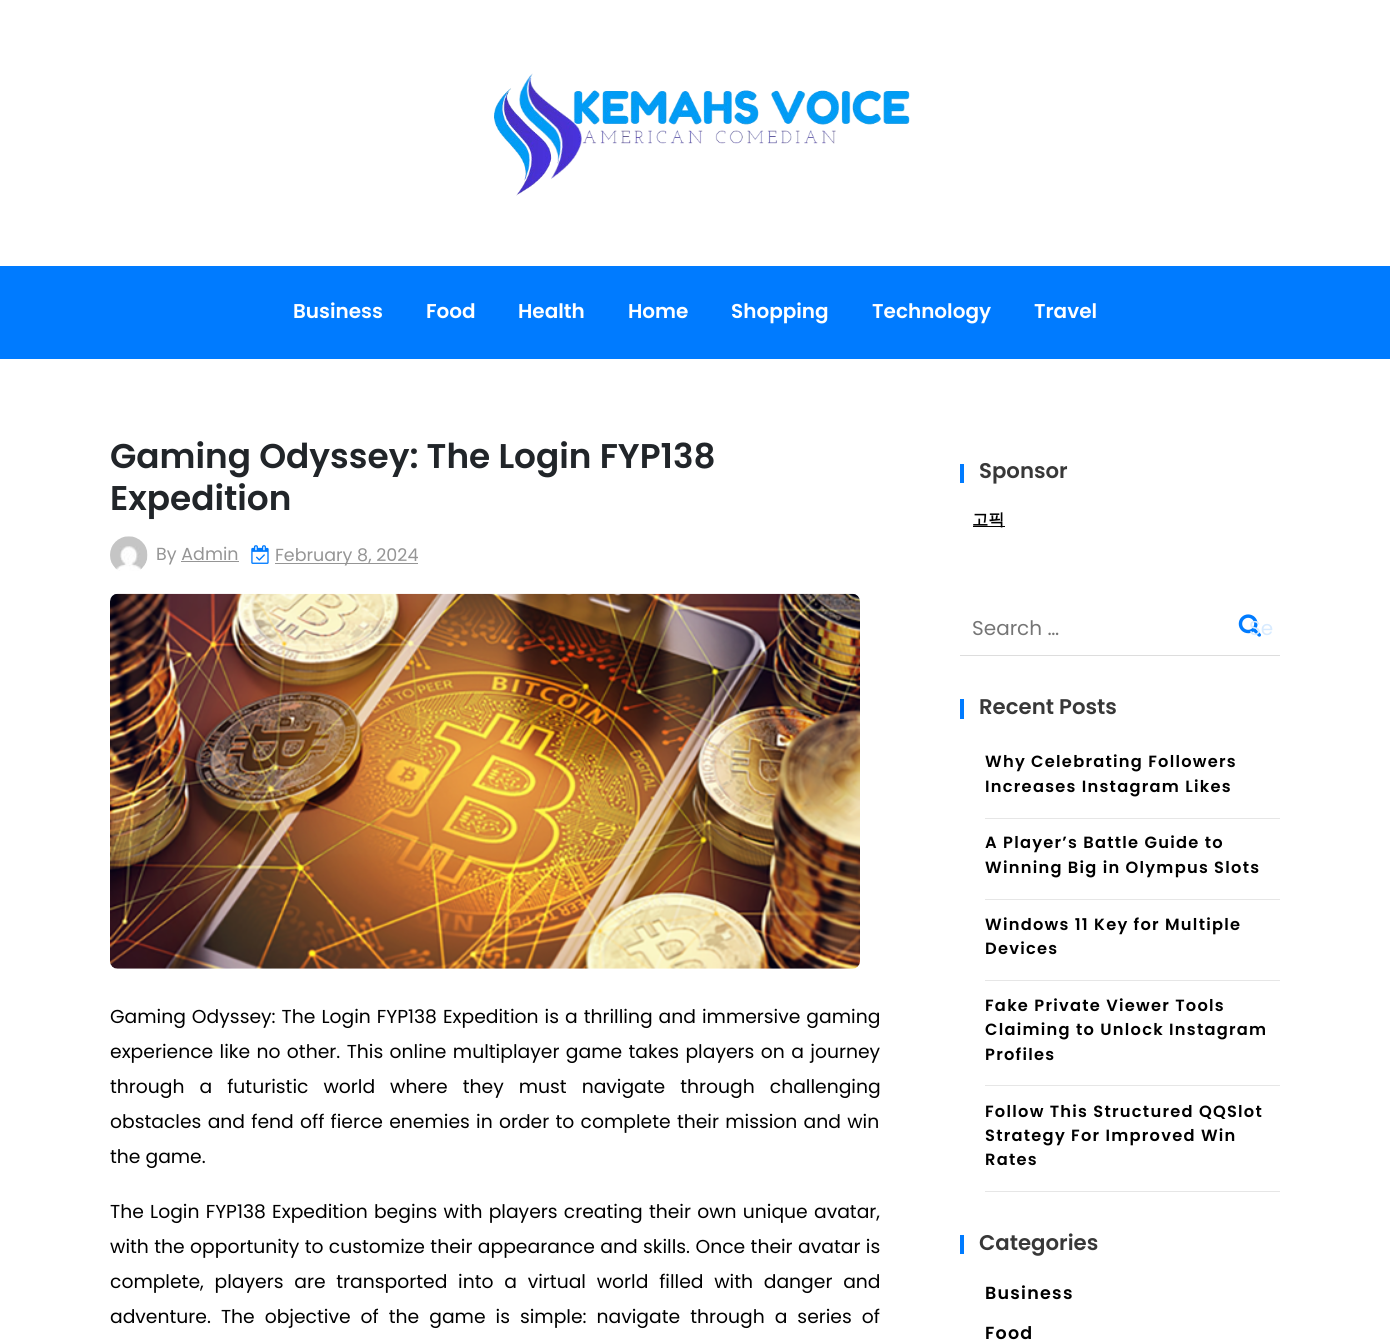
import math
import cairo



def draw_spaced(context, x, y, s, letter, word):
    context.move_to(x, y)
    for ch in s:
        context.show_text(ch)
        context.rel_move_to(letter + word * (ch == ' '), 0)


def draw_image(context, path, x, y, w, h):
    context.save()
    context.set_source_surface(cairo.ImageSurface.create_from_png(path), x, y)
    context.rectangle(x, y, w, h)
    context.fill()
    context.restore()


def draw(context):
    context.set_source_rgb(1, 1, 1)
    context.paint()
    draw_image(context, "images/1.png", 494, 73, 416, 123)
    context.set_source_rgb(0, 123 / 255, 1)
    context.rectangle(0, 266, 1390, 93)
    context.fill()
    draw_image(context, "images/2.png", 110, 536, 38, 35)
    context.set_source_rgb(149 / 255, 149 / 255, 149 / 255)
    context.rectangle(181, 561, 58, 1)
    context.fill()
    draw_image(context, "images/3.png", 251, 545, 18, 19)
    context.rectangle(275, 563, 143, 1)
    context.fill()
    draw_image(context, "images/4.png", 110, 593, 750, 376)
    context.set_source_rgb(0, 123 / 255, 1)
    context.rectangle(960, 464, 4, 19)
    context.fill()
    context.set_source_rgb(0, 0, 0)
    context.rectangle(973, 526, 32, 1)
    context.fill()
    context.set_source_rgb(221 / 255, 221 / 255, 221 / 255)
    context.rectangle(960, 655, 320, 1)
    context.fill()
    draw_image(context, "images/5.png", 1238, 614, 23, 23)
    context.set_source_rgb(0, 123 / 255, 1)
    context.rectangle(960, 699, 4, 20)
    context.fill()
    context.set_source_rgb(230 / 255, 230 / 255, 230 / 255)
    context.rectangle(985, 818, 295, 1)
    context.fill()
    context.rectangle(985, 899, 295, 1)
    context.fill()
    context.rectangle(985, 980, 295, 1)
    context.fill()
    context.rectangle(985, 1085, 295, 1)
    context.fill()
    context.rectangle(985, 1191, 295, 1)
    context.fill()
    context.set_source_rgb(0, 123 / 255, 1)
    context.rectangle(960, 1235, 4, 19)
    context.fill()
    context.select_font_face("Poppins SemiBold")
    context.set_font_size(20)
    context.set_source_rgb(1, 1, 1)
    context.move_to(293, 318)
    context.show_text("Business")
    context.move_to(426, 318)
    context.show_text("Food")
    context.move_to(518, 318)
    context.show_text("Health")
    context.move_to(628, 318)
    context.show_text("Home")
    context.move_to(731, 318)
    context.show_text("Shopping")
    context.move_to(872, 318)
    context.show_text("Technology")
    context.move_to(1034, 318)
    context.show_text("Travel")
    context.set_font_size(34.3)
    context.set_source_rgb(33 / 255, 37 / 255, 41 / 255)
    context.move_to(110, 468)
    context.show_text("Gaming Odyssey: The Login FYP138")
    context.move_to(110, 510)
    context.show_text("Expedition")
    context.select_font_face("Poppins")
    context.set_font_size(17.5)
    context.set_source_rgb(149 / 255, 149 / 255, 149 / 255)
    context.move_to(156, 560)
    context.show_text("By Admin")
    context.move_to(275, 561)
    context.show_text("February 8, 2024")
    context.set_font_size(18.75)
    context.set_source_rgb(0, 0, 0)
    draw_spaced(context, 110, 1023, "Gaming Odyssey: The Login FYP138 Expedition is a thrilling and immersive gaming", 0, 1)
    draw_spaced(context, 110, 1058, "experience like no other. This online multiplayer game takes players on a journey", 0, 1.4)
    draw_spaced(context, 110, 1093, "through a futuristic world where they must navigate through challenging", 0, 10)
    draw_spaced(context, 110, 1128, "obstacles and fend off fierce enemies in order to complete their mission and win", 0, 1.25)
    context.move_to(110, 1163)
    context.show_text("the game.")
    draw_spaced(context, 110, 1218, "The Login FYP138 Expedition begins with players creating their own unique avatar,", 0, 1.25)
    draw_spaced(context, 110, 1253, "with the opportunity to customize their appearance and skills. Once their avatar is", 0, 0.4)
    draw_spaced(context, 110, 1288, "complete, players are transported into a virtual world filled with danger and", 0, 5.75)
    draw_spaced(context, 110, 1323, "adventure. The objective of the game is simple: navigate through a series of", 0, 5)
    context.select_font_face("Poppins SemiBold")
    context.set_font_size(21.25)
    context.set_source_rgb(56 / 255, 56 / 255, 56 / 255)
    context.move_to(979, 478)
    context.show_text("Sponsor")
    context.select_font_face("WenQuanYi Zen Hei", cairo.FontSlant.NORMAL, cairo.FontWeight.BOLD)
    context.set_font_size(16.25)
    context.set_source_rgb(0, 0, 0)
    context.move_to(972, 525)
    context.show_text("고픽")
    context.select_font_face("Poppins")
    context.set_font_size(20)
    context.set_source_rgb(117 / 255, 117 / 255, 117 / 255)
    context.move_to(972, 635)
    context.show_text("Search …")
    context.set_source_rgb(216 / 255, 235 / 255, 1)
    context.move_to(1249, 635)
    context.show_text("Se")
    context.select_font_face("Poppins SemiBold")
    context.set_font_size(21.25)
    context.set_source_rgb(56 / 255, 56 / 255, 56 / 255)
    context.move_to(979, 714)
    context.show_text("Recent Posts")
    context.set_font_size(16.25)
    context.set_source_rgb(0, 0, 0)
    draw_spaced(context, 985, 767, "Why Celebrating Followers", 1.25, 0)
    draw_spaced(context, 985, 792, "Increases Instagram Likes", 1.25, 0)
    draw_spaced(context, 985, 848, "A Player’s Battle Guide to", 1.25, 0)
    draw_spaced(context, 985, 873, "Winning Big in Olympus Slots", 1.25, 0)
    draw_spaced(context, 985, 930, "Windows 11 Key for Multiple", 1.25, 0)
    draw_spaced(context, 985, 954, "Devices", 1.25, 0)
    draw_spaced(context, 985, 1011, "Fake Private Viewer Tools", 1.25, 0)
    draw_spaced(context, 985, 1035, "Claiming to Unlock Instagram", 1.25, 0)
    draw_spaced(context, 985, 1060, "Profiles", 1.25, 0)
    draw_spaced(context, 985, 1117, "Follow This Structured QQSlot", 1.25, 0)
    draw_spaced(context, 985, 1141, "Strategy For Improved Win", 1.25, 0)
    draw_spaced(context, 985, 1165, "Rates", 1.25, 0)
    context.set_font_size(21.25)
    context.set_source_rgb(56 / 255, 56 / 255, 56 / 255)
    context.move_to(979, 1250)
    context.show_text("Categories")
    context.set_font_size(17.5)
    context.set_source_rgb(0, 0, 0)
    draw_spaced(context, 985, 1299, "Business", 1.25, 0)
    draw_spaced(context, 985, 1339, "Food", 1.25, 0)


surface = cairo.ImageSurface(cairo.Format.RGB24, 1390, 1341)
context = cairo.Context(surface)
options = cairo.FontOptions()
options.set_hint_metrics(cairo.HintMetrics.OFF)
options.set_hint_style(cairo.HintStyle.NONE)
context.set_font_options(options)
context.set_miter_limit(4)
draw(context)
surface.write_to_png("out.png")
